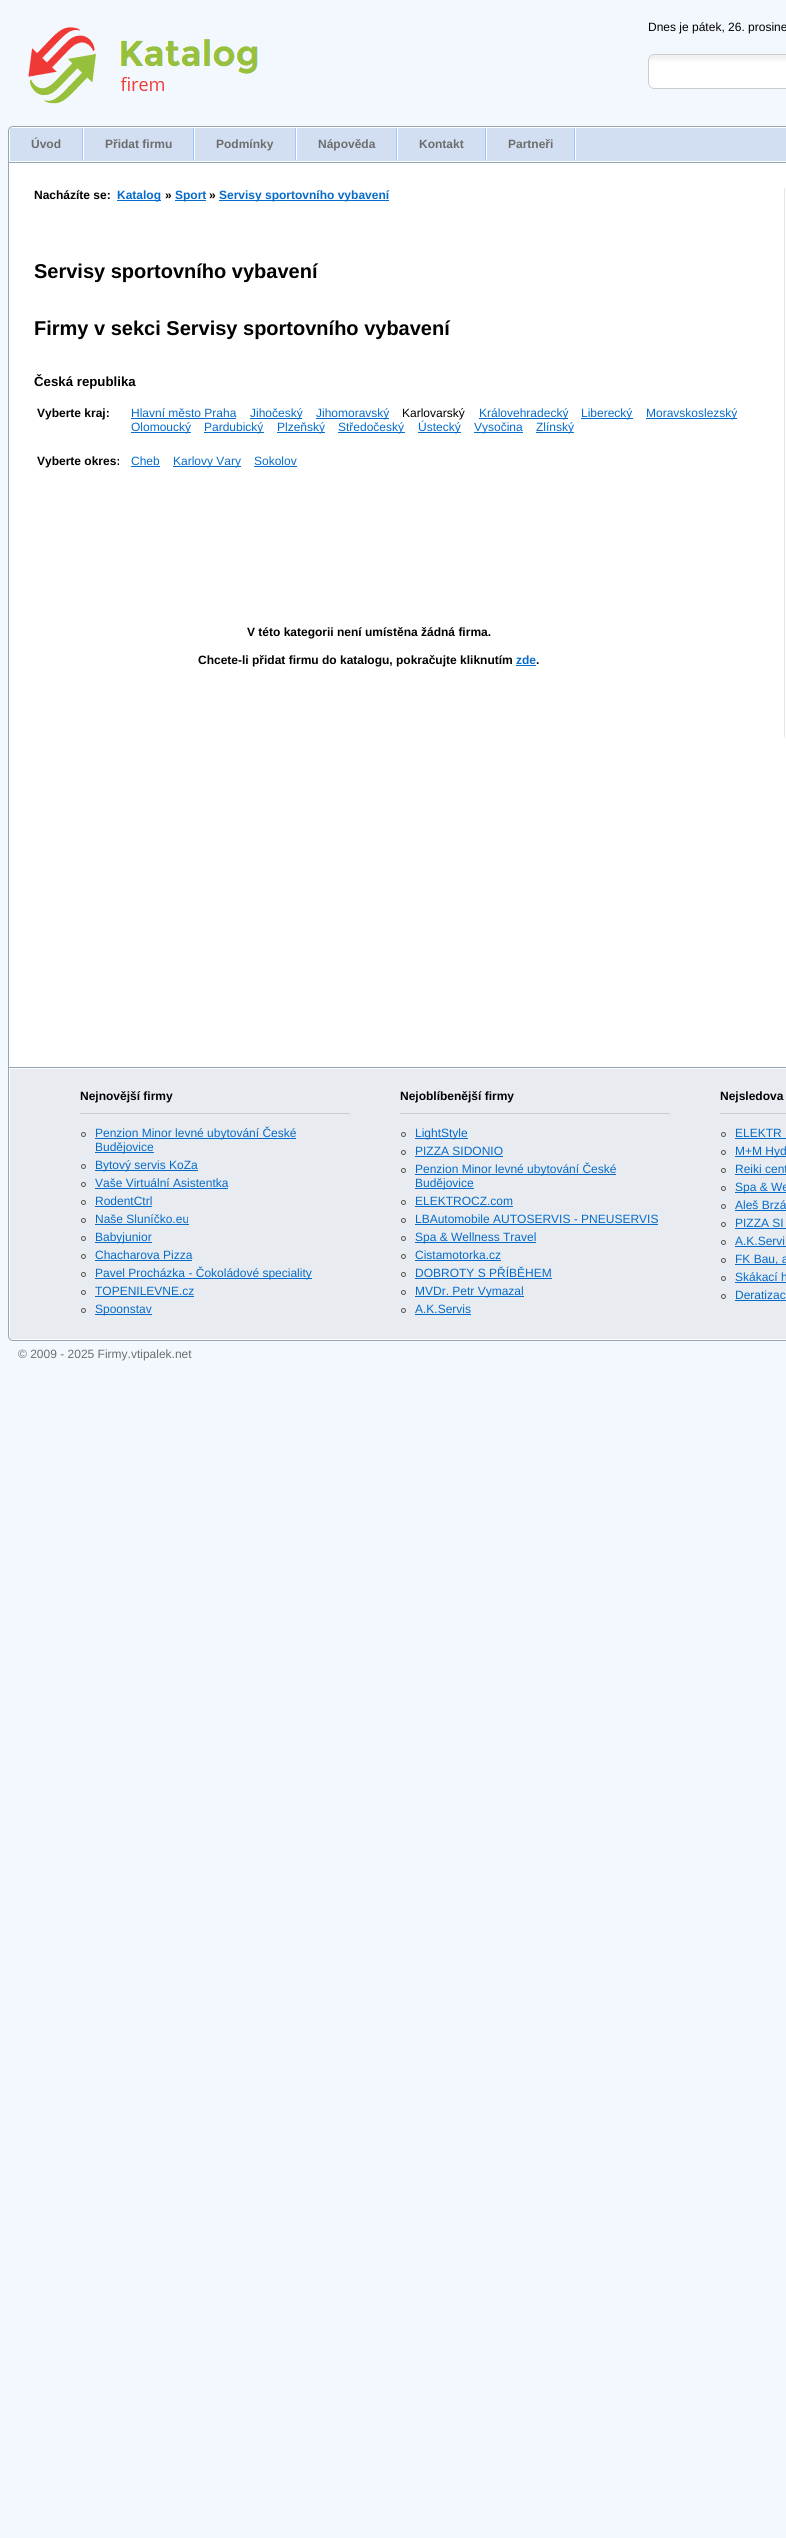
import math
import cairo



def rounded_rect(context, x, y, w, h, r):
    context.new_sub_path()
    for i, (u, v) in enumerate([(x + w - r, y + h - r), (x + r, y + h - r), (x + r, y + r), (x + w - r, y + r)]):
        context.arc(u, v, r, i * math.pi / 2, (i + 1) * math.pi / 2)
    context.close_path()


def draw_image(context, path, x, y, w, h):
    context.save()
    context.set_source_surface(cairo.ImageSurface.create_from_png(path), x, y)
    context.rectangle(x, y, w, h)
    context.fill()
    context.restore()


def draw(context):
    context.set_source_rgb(243 / 255, 248 / 255, 1)
    context.paint()
    draw_image(context, "images/1.png", 28, 27, 230, 77)
    draw_image(context, "images/2.png", 648, 54, 138, 35)
    context.set_source_rgb(1, 1, 1)
    context.rectangle(654, 78, 1, 2)
    context.fill()
    rounded_rect(context, 8.5, 126.5, 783, 1214, 4.5)
    context.fill_preserve()
    context.set_source_rgb(149 / 255, 165 / 255, 182 / 255)
    context.set_line_width(1)
    context.stroke()
    context.rectangle(9, 162, 777, 1)
    context.fill()
    context.set_source_rgb(210 / 255, 222 / 255, 241 / 255)
    context.rectangle(10, 128, 776, 33)
    context.fill()
    context.set_source_rgb(1, 1, 1)
    context.rectangle(83, 128, 1, 32)
    context.fill()
    context.set_source_rgb(157 / 255, 197 / 255, 1)
    context.rectangle(82, 128, 1, 32)
    context.fill()
    context.set_source_rgb(1, 1, 1)
    context.rectangle(194, 128, 1, 32)
    context.fill()
    context.set_source_rgb(157 / 255, 197 / 255, 1)
    context.rectangle(193, 128, 1, 32)
    context.fill()
    context.set_source_rgb(1, 1, 1)
    context.rectangle(296, 128, 1, 32)
    context.fill()
    context.set_source_rgb(157 / 255, 197 / 255, 1)
    context.rectangle(295, 128, 1, 32)
    context.fill()
    context.set_source_rgb(1, 1, 1)
    context.rectangle(397, 128, 1, 32)
    context.fill()
    context.set_source_rgb(157 / 255, 197 / 255, 1)
    context.rectangle(396, 128, 1, 32)
    context.fill()
    context.set_source_rgb(1, 1, 1)
    context.rectangle(486, 128, 1, 32)
    context.fill()
    context.set_source_rgb(157 / 255, 197 / 255, 1)
    context.rectangle(485, 128, 1, 32)
    context.fill()
    context.set_source_rgb(1, 1, 1)
    context.rectangle(575, 128, 1, 32)
    context.fill()
    context.set_source_rgb(157 / 255, 197 / 255, 1)
    context.rectangle(574, 128, 1, 32)
    context.fill()
    context.set_source_rgb(230 / 255, 230 / 255, 230 / 255)
    context.rectangle(784, 188, 1, 549)
    context.fill()
    context.set_source_rgb(6 / 255, 107 / 255, 201 / 255)
    context.rectangle(117, 200, 44, 1)
    context.fill()
    context.rectangle(175, 200, 31, 1)
    context.fill()
    context.rectangle(219, 200, 170, 1)
    context.fill()
    context.rectangle(131, 418, 105, 1)
    context.fill()
    context.rectangle(250, 418, 52, 1)
    context.fill()
    context.rectangle(316, 418, 73, 1)
    context.fill()
    context.rectangle(479, 418, 89, 1)
    context.fill()
    context.rectangle(581, 418, 52, 1)
    context.fill()
    context.rectangle(646, 418, 91, 1)
    context.fill()
    context.rectangle(131, 432, 60, 1)
    context.fill()
    context.rectangle(204, 432, 60, 1)
    context.fill()
    context.rectangle(277, 432, 48, 1)
    context.fill()
    context.rectangle(338, 432, 67, 1)
    context.fill()
    context.rectangle(418, 432, 43, 1)
    context.fill()
    context.rectangle(474, 432, 49, 1)
    context.fill()
    context.rectangle(536, 432, 38, 1)
    context.fill()
    context.rectangle(131, 466, 29, 1)
    context.fill()
    context.rectangle(173, 466, 68, 1)
    context.fill()
    context.rectangle(254, 466, 43, 1)
    context.fill()
    context.rectangle(516, 665, 20, 1)
    context.fill()
    context.set_source_rgb(149 / 255, 165 / 255, 182 / 255)
    context.rectangle(9, 1067, 777, 1)
    context.fill()
    context.set_source_rgb(232 / 255, 236 / 255, 241 / 255)
    context.rectangle(10, 1069, 776, 270)
    context.fill()
    context.set_source_rgb(205 / 255, 205 / 255, 205 / 255)
    context.rectangle(80, 1113, 270, 1)
    context.fill()
    context.arc(83.5, 1134.5, 2, 0, 2 * math.pi)
    context.set_source_rgb(85 / 255, 85 / 255, 85 / 255)
    context.stroke()
    context.set_source_rgb(6 / 255, 107 / 255, 201 / 255)
    context.rectangle(95, 1138, 201, 1)
    context.fill()
    context.rectangle(95, 1152, 59, 1)
    context.fill()
    context.arc(83.5, 1166.5, 2, 0, 2 * math.pi)
    context.set_source_rgb(85 / 255, 85 / 255, 85 / 255)
    context.stroke()
    context.set_source_rgb(6 / 255, 107 / 255, 201 / 255)
    context.rectangle(95, 1170, 103, 1)
    context.fill()
    context.arc(83.5, 1184.5, 2, 0, 2 * math.pi)
    context.set_source_rgb(85 / 255, 85 / 255, 85 / 255)
    context.stroke()
    context.set_source_rgb(6 / 255, 107 / 255, 201 / 255)
    context.rectangle(95, 1188, 133, 1)
    context.fill()
    context.arc(83.5, 1202.5, 2, 0, 2 * math.pi)
    context.set_source_rgb(85 / 255, 85 / 255, 85 / 255)
    context.stroke()
    context.set_source_rgb(6 / 255, 107 / 255, 201 / 255)
    context.rectangle(95, 1206, 57, 1)
    context.fill()
    context.arc(83.5, 1220.5, 2, 0, 2 * math.pi)
    context.set_source_rgb(85 / 255, 85 / 255, 85 / 255)
    context.stroke()
    context.set_source_rgb(6 / 255, 107 / 255, 201 / 255)
    context.rectangle(95, 1224, 94, 1)
    context.fill()
    context.arc(83.5, 1238.5, 2, 0, 2 * math.pi)
    context.set_source_rgb(85 / 255, 85 / 255, 85 / 255)
    context.stroke()
    context.set_source_rgb(6 / 255, 107 / 255, 201 / 255)
    context.rectangle(95, 1242, 57, 1)
    context.fill()
    context.arc(83.5, 1256.5, 2, 0, 2 * math.pi)
    context.set_source_rgb(85 / 255, 85 / 255, 85 / 255)
    context.stroke()
    context.set_source_rgb(6 / 255, 107 / 255, 201 / 255)
    context.rectangle(95, 1260, 97, 1)
    context.fill()
    context.arc(83.5, 1274.5, 2, 0, 2 * math.pi)
    context.set_source_rgb(85 / 255, 85 / 255, 85 / 255)
    context.stroke()
    context.set_source_rgb(6 / 255, 107 / 255, 201 / 255)
    context.rectangle(95, 1278, 217, 1)
    context.fill()
    context.arc(83.5, 1292.5, 2, 0, 2 * math.pi)
    context.set_source_rgb(85 / 255, 85 / 255, 85 / 255)
    context.stroke()
    context.set_source_rgb(6 / 255, 107 / 255, 201 / 255)
    context.rectangle(95, 1296, 99, 1)
    context.fill()
    context.arc(83.5, 1310.5, 2, 0, 2 * math.pi)
    context.set_source_rgb(85 / 255, 85 / 255, 85 / 255)
    context.stroke()
    context.set_source_rgb(6 / 255, 107 / 255, 201 / 255)
    context.rectangle(95, 1314, 57, 1)
    context.fill()
    context.set_source_rgb(205 / 255, 205 / 255, 205 / 255)
    context.rectangle(400, 1113, 270, 1)
    context.fill()
    context.arc(403.5, 1134.5, 2, 0, 2 * math.pi)
    context.set_source_rgb(85 / 255, 85 / 255, 85 / 255)
    context.stroke()
    context.set_source_rgb(6 / 255, 107 / 255, 201 / 255)
    context.rectangle(415, 1138, 53, 1)
    context.fill()
    context.arc(403.5, 1152.5, 2, 0, 2 * math.pi)
    context.set_source_rgb(85 / 255, 85 / 255, 85 / 255)
    context.stroke()
    context.set_source_rgb(6 / 255, 107 / 255, 201 / 255)
    context.rectangle(415, 1156, 88, 1)
    context.fill()
    context.arc(403.5, 1170.5, 2, 0, 2 * math.pi)
    context.set_source_rgb(85 / 255, 85 / 255, 85 / 255)
    context.stroke()
    context.set_source_rgb(6 / 255, 107 / 255, 201 / 255)
    context.rectangle(415, 1174, 201, 1)
    context.fill()
    context.rectangle(415, 1188, 59, 1)
    context.fill()
    context.arc(403.5, 1202.5, 2, 0, 2 * math.pi)
    context.set_source_rgb(85 / 255, 85 / 255, 85 / 255)
    context.stroke()
    context.set_source_rgb(6 / 255, 107 / 255, 201 / 255)
    context.rectangle(415, 1206, 98, 1)
    context.fill()
    context.arc(403.5, 1220.5, 2, 0, 2 * math.pi)
    context.set_source_rgb(85 / 255, 85 / 255, 85 / 255)
    context.stroke()
    context.set_source_rgb(6 / 255, 107 / 255, 201 / 255)
    context.rectangle(415, 1224, 243, 1)
    context.fill()
    context.arc(403.5, 1238.5, 2, 0, 2 * math.pi)
    context.set_source_rgb(85 / 255, 85 / 255, 85 / 255)
    context.stroke()
    context.set_source_rgb(6 / 255, 107 / 255, 201 / 255)
    context.rectangle(415, 1242, 121, 1)
    context.fill()
    context.arc(403.5, 1256.5, 2, 0, 2 * math.pi)
    context.set_source_rgb(85 / 255, 85 / 255, 85 / 255)
    context.stroke()
    context.set_source_rgb(6 / 255, 107 / 255, 201 / 255)
    context.rectangle(415, 1260, 86, 1)
    context.fill()
    context.arc(403.5, 1274.5, 2, 0, 2 * math.pi)
    context.set_source_rgb(85 / 255, 85 / 255, 85 / 255)
    context.stroke()
    context.set_source_rgb(6 / 255, 107 / 255, 201 / 255)
    context.rectangle(415, 1278, 137, 1)
    context.fill()
    context.arc(403.5, 1292.5, 2, 0, 2 * math.pi)
    context.set_source_rgb(85 / 255, 85 / 255, 85 / 255)
    context.stroke()
    context.set_source_rgb(6 / 255, 107 / 255, 201 / 255)
    context.rectangle(415, 1296, 109, 1)
    context.fill()
    context.arc(403.5, 1310.5, 2, 0, 2 * math.pi)
    context.set_source_rgb(85 / 255, 85 / 255, 85 / 255)
    context.stroke()
    context.set_source_rgb(6 / 255, 107 / 255, 201 / 255)
    context.rectangle(415, 1314, 56, 1)
    context.fill()
    context.set_source_rgb(205 / 255, 205 / 255, 205 / 255)
    context.rectangle(720, 1113, 66, 1)
    context.fill()
    context.arc(723.5, 1134.5, 2, 0, 2 * math.pi)
    context.set_source_rgb(85 / 255, 85 / 255, 85 / 255)
    context.stroke()
    context.set_source_rgb(6 / 255, 107 / 255, 201 / 255)
    context.rectangle(735, 1138, 51, 1)
    context.fill()
    context.arc(723.5, 1152.5, 2, 0, 2 * math.pi)
    context.set_source_rgb(85 / 255, 85 / 255, 85 / 255)
    context.stroke()
    context.set_source_rgb(6 / 255, 107 / 255, 201 / 255)
    context.rectangle(735, 1156, 51, 1)
    context.fill()
    context.arc(723.5, 1170.5, 2, 0, 2 * math.pi)
    context.set_source_rgb(85 / 255, 85 / 255, 85 / 255)
    context.stroke()
    context.set_source_rgb(6 / 255, 107 / 255, 201 / 255)
    context.rectangle(735, 1174, 51, 1)
    context.fill()
    context.arc(723.5, 1188.5, 2, 0, 2 * math.pi)
    context.set_source_rgb(85 / 255, 85 / 255, 85 / 255)
    context.stroke()
    context.set_source_rgb(6 / 255, 107 / 255, 201 / 255)
    context.rectangle(735, 1192, 51, 1)
    context.fill()
    context.arc(723.5, 1206.5, 2, 0, 2 * math.pi)
    context.set_source_rgb(85 / 255, 85 / 255, 85 / 255)
    context.stroke()
    context.set_source_rgb(6 / 255, 107 / 255, 201 / 255)
    context.rectangle(735, 1210, 51, 1)
    context.fill()
    context.arc(723.5, 1224.5, 2, 0, 2 * math.pi)
    context.set_source_rgb(85 / 255, 85 / 255, 85 / 255)
    context.stroke()
    context.set_source_rgb(6 / 255, 107 / 255, 201 / 255)
    context.rectangle(735, 1228, 51, 1)
    context.fill()
    context.arc(723.5, 1242.5, 2, 0, 2 * math.pi)
    context.set_source_rgb(85 / 255, 85 / 255, 85 / 255)
    context.stroke()
    context.set_source_rgb(6 / 255, 107 / 255, 201 / 255)
    context.rectangle(735, 1246, 51, 1)
    context.fill()
    context.arc(723.5, 1260.5, 2, 0, 2 * math.pi)
    context.set_source_rgb(85 / 255, 85 / 255, 85 / 255)
    context.stroke()
    context.set_source_rgb(6 / 255, 107 / 255, 201 / 255)
    context.rectangle(735, 1264, 51, 1)
    context.fill()
    context.arc(723.5, 1278.5, 2, 0, 2 * math.pi)
    context.set_source_rgb(85 / 255, 85 / 255, 85 / 255)
    context.stroke()
    context.set_source_rgb(6 / 255, 107 / 255, 201 / 255)
    context.rectangle(735, 1282, 51, 1)
    context.fill()
    context.arc(723.5, 1296.5, 2, 0, 2 * math.pi)
    context.set_source_rgb(85 / 255, 85 / 255, 85 / 255)
    context.stroke()
    context.set_source_rgb(6 / 255, 107 / 255, 201 / 255)
    context.rectangle(735, 1300, 51, 1)
    context.fill()
    context.select_font_face("Liberation Sans")
    context.set_font_size(12)
    context.set_source_rgb(0, 0, 0)
    context.move_to(648, 31)
    context.show_text("Dnes je pátek, 26. prosine")
    context.select_font_face("Liberation Sans", cairo.FontSlant.NORMAL, cairo.FontWeight.BOLD)
    context.set_source_rgb(109 / 255, 109 / 255, 109 / 255)
    context.move_to(31, 148)
    context.show_text("Úvod")
    context.move_to(105, 148)
    context.show_text("Přidat firmu")
    context.move_to(216, 148)
    context.show_text("Podmínky")
    context.move_to(318, 148)
    context.show_text("Nápověda")
    context.move_to(419, 148)
    context.show_text("Kontakt")
    context.move_to(508, 148)
    context.show_text("Partneři")
    context.set_source_rgb(0, 0, 0)
    context.move_to(34, 199)
    context.show_text("Nacházíte se:")
    context.set_source_rgb(6 / 255, 107 / 255, 201 / 255)
    context.move_to(117, 199)
    context.show_text("Katalog")
    context.set_source_rgb(0, 0, 0)
    context.move_to(165, 199)
    context.show_text("»")
    context.set_source_rgb(6 / 255, 107 / 255, 201 / 255)
    context.move_to(175, 199)
    context.show_text("Sport")
    context.set_source_rgb(0, 0, 0)
    context.move_to(209, 199)
    context.show_text("»")
    context.set_source_rgb(6 / 255, 107 / 255, 201 / 255)
    context.move_to(219, 199)
    context.show_text("Servisy sportovního vybavení")
    context.set_font_size(20)
    context.set_source_rgb(0, 0, 0)
    context.move_to(34, 278)
    context.show_text("Servisy sportovního vybavení")
    context.move_to(34, 335)
    context.show_text("Firmy v sekci Servisy sportovního vybavení")
    context.set_font_size(13.25)
    context.move_to(34, 386)
    context.show_text("Česká republika")
    context.set_font_size(12)
    context.move_to(37, 417)
    context.show_text("Vyberte kraj:")
    context.select_font_face("Liberation Sans")
    context.set_source_rgb(6 / 255, 107 / 255, 201 / 255)
    context.move_to(131, 417)
    context.show_text("Hlavní město Praha")
    context.move_to(250, 417)
    context.show_text("Jihočeský")
    context.move_to(316, 417)
    context.show_text("Jihomoravský")
    context.set_source_rgb(0, 0, 0)
    context.move_to(402, 417)
    context.show_text("Karlovarský")
    context.set_source_rgb(6 / 255, 107 / 255, 201 / 255)
    context.move_to(479, 417)
    context.show_text("Královehradecký")
    context.move_to(581, 417)
    context.show_text("Liberecký")
    context.move_to(646, 417)
    context.show_text("Moravskoslezský")
    context.move_to(131, 431)
    context.show_text("Olomoucký")
    context.move_to(204, 431)
    context.show_text("Pardubický")
    context.move_to(277, 431)
    context.show_text("Plzeňský")
    context.move_to(338, 431)
    context.show_text("Středočeský")
    context.move_to(418, 431)
    context.show_text("Ústecký")
    context.move_to(474, 431)
    context.show_text("Vysočina")
    context.move_to(536, 431)
    context.show_text("Zlínský")
    context.select_font_face("Liberation Sans", cairo.FontSlant.NORMAL, cairo.FontWeight.BOLD)
    context.set_source_rgb(0, 0, 0)
    context.move_to(37, 465)
    context.show_text("Vyberte okres:")
    context.select_font_face("Liberation Sans")
    context.set_source_rgb(6 / 255, 107 / 255, 201 / 255)
    context.move_to(131, 465)
    context.show_text("Cheb")
    context.move_to(173, 465)
    context.show_text("Karlovy Vary")
    context.move_to(254, 465)
    context.show_text("Sokolov")
    context.select_font_face("Liberation Sans", cairo.FontSlant.NORMAL, cairo.FontWeight.BOLD)
    context.set_source_rgb(0, 0, 0)
    context.move_to(247, 636)
    context.show_text("V této kategorii není umístěna žádná firma.")
    context.move_to(198, 664)
    context.show_text("Chcete-li přidat firmu do katalogu, pokračujte kliknutím")
    context.set_source_rgb(6 / 255, 107 / 255, 201 / 255)
    context.move_to(516, 664)
    context.show_text("zde")
    context.set_source_rgb(0, 0, 0)
    context.move_to(536, 664)
    context.show_text(".")
    context.move_to(80, 1100)
    context.show_text("Nejnovější firmy")
    context.select_font_face("Liberation Sans")
    context.set_source_rgb(6 / 255, 107 / 255, 201 / 255)
    context.move_to(95, 1137)
    context.show_text("Penzion Minor levné ubytování České")
    context.move_to(95, 1151)
    context.show_text("Budějovice")
    context.move_to(95, 1169)
    context.show_text("Bytový servis KoZa")
    context.move_to(95, 1187)
    context.show_text("Vaše Virtuální Asistentka")
    context.move_to(95, 1205)
    context.show_text("RodentCtrl")
    context.move_to(95, 1223)
    context.show_text("Naše Sluníčko.eu")
    context.move_to(95, 1241)
    context.show_text("Babyjunior")
    context.move_to(95, 1259)
    context.show_text("Chacharova Pizza")
    context.move_to(95, 1277)
    context.show_text("Pavel Procházka - Čokoládové speciality")
    context.move_to(95, 1295)
    context.show_text("TOPENILEVNE.cz")
    context.move_to(95, 1313)
    context.show_text("Spoonstav")
    context.select_font_face("Liberation Sans", cairo.FontSlant.NORMAL, cairo.FontWeight.BOLD)
    context.set_source_rgb(0, 0, 0)
    context.move_to(400, 1100)
    context.show_text("Nejoblíbenější firmy")
    context.select_font_face("Liberation Sans")
    context.set_source_rgb(6 / 255, 107 / 255, 201 / 255)
    context.move_to(415, 1137)
    context.show_text("LightStyle")
    context.move_to(415, 1155)
    context.show_text("PIZZA SIDONIO")
    context.move_to(415, 1173)
    context.show_text("Penzion Minor levné ubytování České")
    context.move_to(415, 1187)
    context.show_text("Budějovice")
    context.move_to(415, 1205)
    context.show_text("ELEKTROCZ.com")
    context.move_to(415, 1223)
    context.show_text("LBAutomobile AUTOSERVIS - PNEUSERVIS")
    context.move_to(415, 1241)
    context.show_text("Spa & Wellness Travel")
    context.move_to(415, 1259)
    context.show_text("Cistamotorka.cz")
    context.move_to(415, 1277)
    context.show_text("DOBROTY S PŘÍBĚHEM")
    context.move_to(415, 1295)
    context.show_text("MVDr. Petr Vymazal")
    context.move_to(415, 1313)
    context.show_text("A.K.Servis")
    context.select_font_face("Liberation Sans", cairo.FontSlant.NORMAL, cairo.FontWeight.BOLD)
    context.set_source_rgb(0, 0, 0)
    context.move_to(720, 1100)
    context.show_text("Nejsledova")
    context.select_font_face("Liberation Sans")
    context.set_source_rgb(6 / 255, 107 / 255, 201 / 255)
    context.move_to(735, 1137)
    context.show_text("ELEKTR")
    context.move_to(735, 1155)
    context.show_text("M+M Hyd")
    context.move_to(735, 1173)
    context.show_text("Reiki cent")
    context.move_to(735, 1191)
    context.show_text("Spa & We")
    context.move_to(735, 1209)
    context.show_text("Aleš Brzá")
    context.move_to(735, 1227)
    context.show_text("PIZZA SI")
    context.move_to(735, 1245)
    context.show_text("A.K.Servi")
    context.move_to(735, 1263)
    context.show_text("FK Bau, a")
    context.move_to(735, 1281)
    context.show_text("Skákací h")
    context.move_to(735, 1299)
    context.show_text("Deratizac")
    context.set_source_rgb(109 / 255, 109 / 255, 109 / 255)
    context.move_to(18, 1358)
    context.show_text("© 2009 - 2025 Firmy.vtipalek.net")


surface = cairo.ImageSurface(cairo.Format.RGB24, 786, 2538)
context = cairo.Context(surface)
options = cairo.FontOptions()
options.set_hint_metrics(cairo.HintMetrics.OFF)
options.set_hint_style(cairo.HintStyle.NONE)
context.set_font_options(options)
context.set_miter_limit(4)
draw(context)
surface.write_to_png("out.png")
